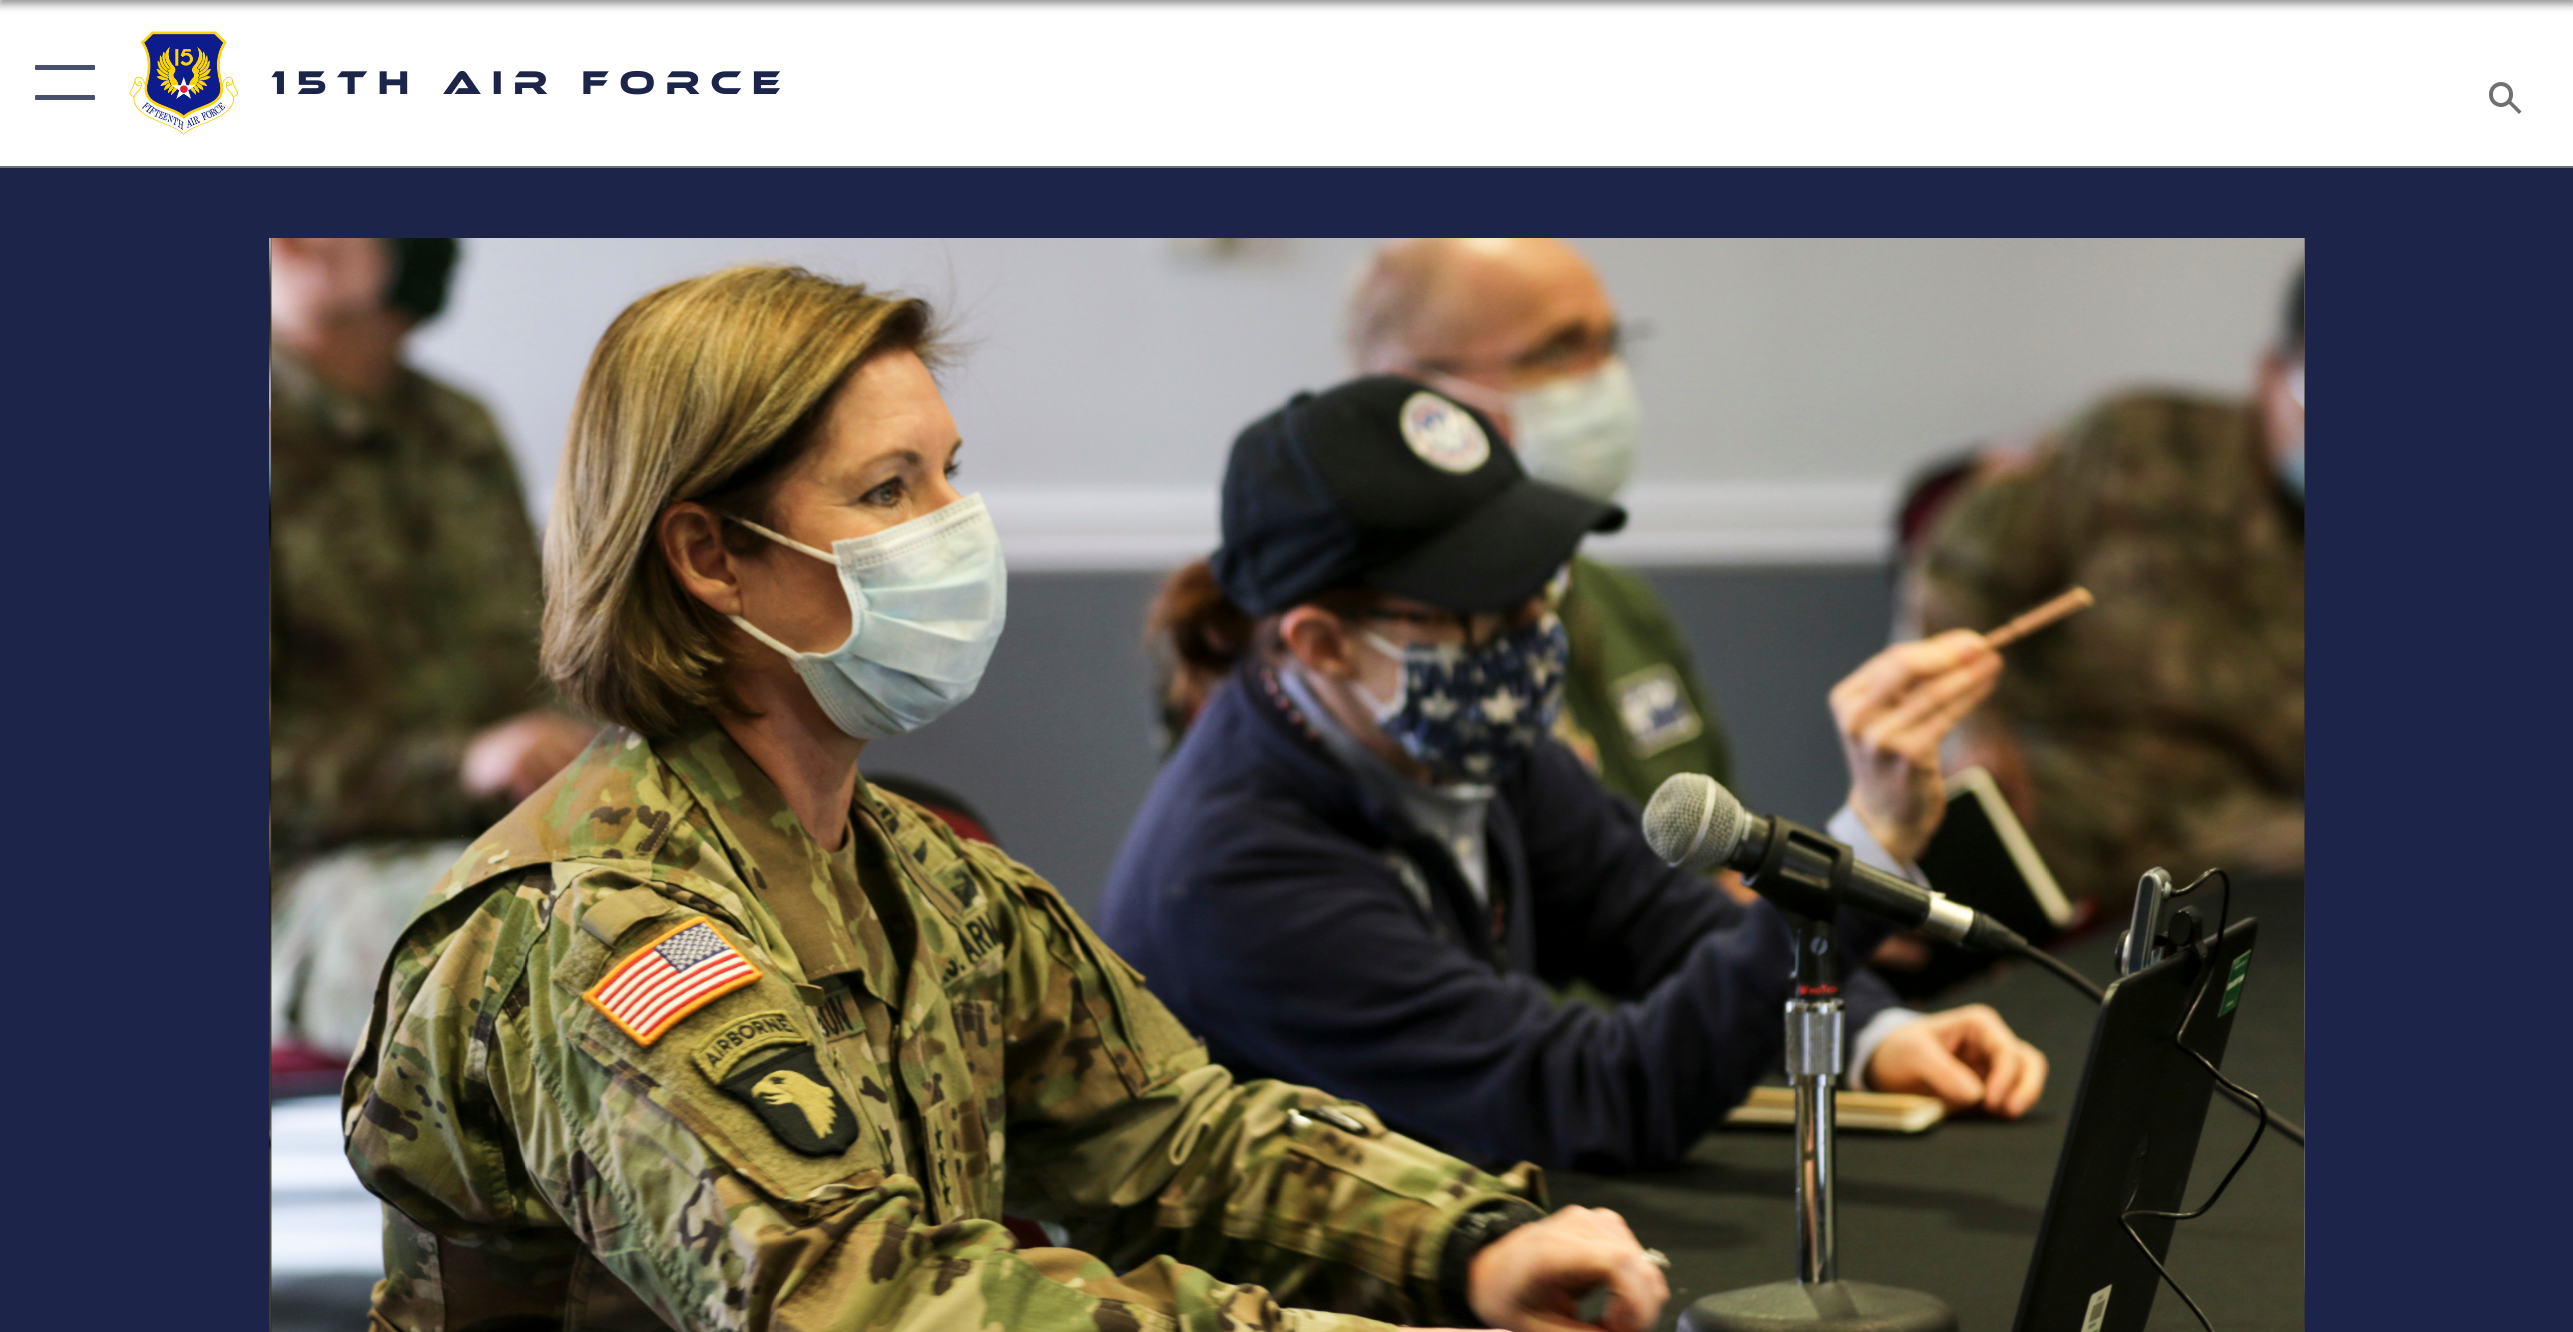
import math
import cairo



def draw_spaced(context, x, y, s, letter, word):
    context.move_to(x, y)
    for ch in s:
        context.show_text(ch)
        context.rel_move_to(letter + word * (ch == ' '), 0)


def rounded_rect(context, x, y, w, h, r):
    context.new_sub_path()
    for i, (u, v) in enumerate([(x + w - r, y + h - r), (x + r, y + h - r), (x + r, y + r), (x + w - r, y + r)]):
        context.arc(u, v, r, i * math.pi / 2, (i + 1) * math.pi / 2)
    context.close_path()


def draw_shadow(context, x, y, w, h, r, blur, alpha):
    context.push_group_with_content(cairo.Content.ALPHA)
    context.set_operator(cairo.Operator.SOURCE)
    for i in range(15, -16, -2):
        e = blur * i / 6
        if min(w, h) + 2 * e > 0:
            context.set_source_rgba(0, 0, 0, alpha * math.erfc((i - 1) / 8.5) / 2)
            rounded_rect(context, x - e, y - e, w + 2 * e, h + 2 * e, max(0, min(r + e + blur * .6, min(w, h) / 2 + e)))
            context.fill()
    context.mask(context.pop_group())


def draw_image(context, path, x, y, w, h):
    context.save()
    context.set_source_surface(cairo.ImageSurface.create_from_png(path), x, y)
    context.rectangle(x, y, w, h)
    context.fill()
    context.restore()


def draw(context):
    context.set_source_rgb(1, 1, 1)
    context.paint()
    context.set_source_rgb(26 / 255, 26 / 255, 26 / 255)
    draw_shadow(context, 0, -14, 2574, 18, 0, 4.5, 0.5)
    context.set_source_rgb(112 / 255, 112 / 255, 112 / 255)
    context.rectangle(0, 166, 2573, 2)
    context.fill()
    context.set_source_rgb(73 / 255, 80 / 255, 109 / 255)
    rounded_rect(context, 35, 65, 60, 5, 1)
    context.fill()
    rounded_rect(context, 35, 95, 60, 5, 1)
    context.fill()
    draw_image(context, "images/1.png", 129, 31, 109, 104)
    rounded_rect(context, 2491, 84, 20, 21, 10)
    context.set_source_rgb(112 / 255, 112 / 255, 112 / 255)
    context.set_line_width(4)
    context.stroke()
    context.new_path()
    context.move_to(2509, 99)
    context.line_to(2521.5, 111.5)
    context.line_to(2519, 114)
    context.line_to(2506.5, 101.5)
    context.close_path()
    context.fill()
    context.set_source_rgb(28 / 255, 36 / 255, 73 / 255)
    context.rectangle(0, 168, 2573, 1164)
    context.fill()
    draw_image(context, "images/2.png", 269, 238, 3, 1094)
    draw_image(context, "images/3.png", 270, 238, 2035, 1094)
    draw_image(context, "images/4.png", 2304, 238, 1, 1094)
    context.select_font_face("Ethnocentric")
    context.set_font_size(33.9)
    draw_spaced(context, 271, 94, "15th Air Force", 10.2, 0)


surface = cairo.ImageSurface(cairo.Format.RGB24, 2573, 1332)
context = cairo.Context(surface)
options = cairo.FontOptions()
options.set_hint_metrics(cairo.HintMetrics.OFF)
options.set_hint_style(cairo.HintStyle.NONE)
context.set_font_options(options)
context.set_miter_limit(4)
draw(context)
surface.write_to_png("out.png")
